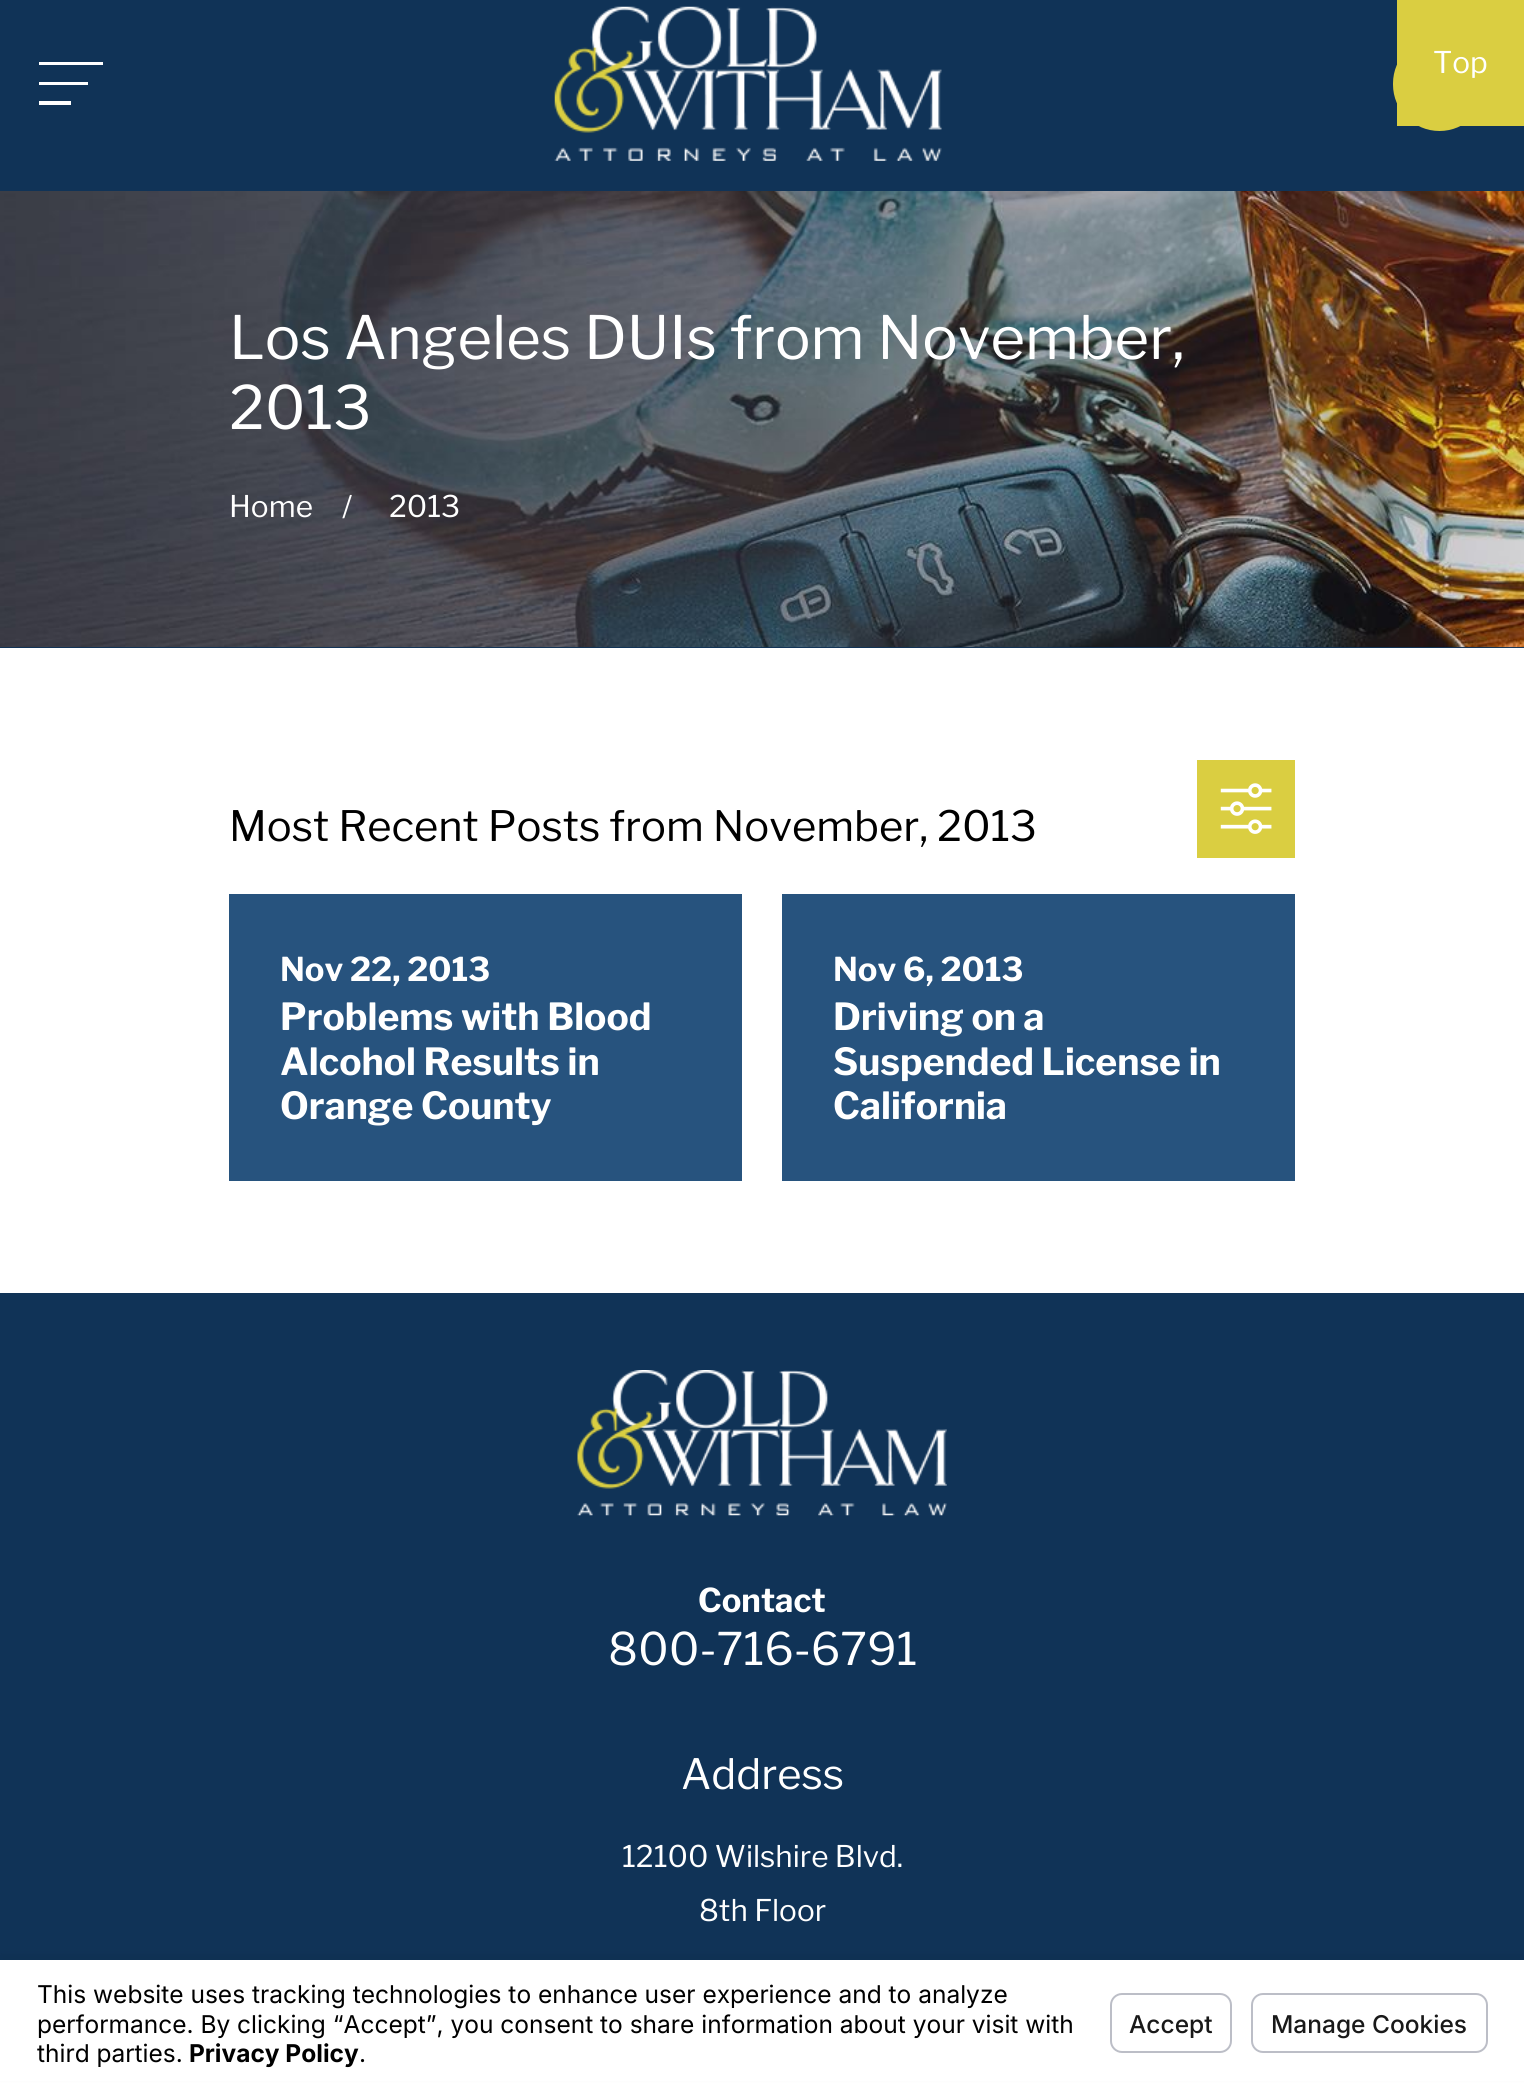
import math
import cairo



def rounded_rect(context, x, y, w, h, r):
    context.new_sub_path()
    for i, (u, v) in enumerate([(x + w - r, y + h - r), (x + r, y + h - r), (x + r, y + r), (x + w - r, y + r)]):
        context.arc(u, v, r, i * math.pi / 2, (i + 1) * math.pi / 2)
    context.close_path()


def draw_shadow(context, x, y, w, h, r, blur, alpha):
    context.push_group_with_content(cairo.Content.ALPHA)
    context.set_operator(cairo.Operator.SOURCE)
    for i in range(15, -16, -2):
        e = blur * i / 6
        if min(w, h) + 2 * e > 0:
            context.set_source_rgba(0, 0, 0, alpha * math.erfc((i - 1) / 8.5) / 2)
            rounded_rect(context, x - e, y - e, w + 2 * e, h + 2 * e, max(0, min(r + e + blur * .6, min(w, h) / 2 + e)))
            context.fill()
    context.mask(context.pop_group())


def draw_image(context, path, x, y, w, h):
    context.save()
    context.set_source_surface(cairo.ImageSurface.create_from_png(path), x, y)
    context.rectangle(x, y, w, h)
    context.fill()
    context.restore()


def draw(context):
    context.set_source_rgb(1, 1, 1)
    context.paint()
    context.set_source_rgb(16 / 255, 51 / 255, 87 / 255)
    context.rectangle(0, 0, 1524, 191)
    context.fill()
    context.save()
    context.rectangle(39, 51, 64, 66)
    context.clip()
    context.set_source_rgb(1, 1, 1)
    context.new_path()
    context.move_to(38, 105)
    context.line_to(38, 101)
    context.line_to(71, 101)
    context.line_to(71, 105)
    context.close_path()
    context.move_to(38, 85)
    context.line_to(38, 82)
    context.line_to(88, 82)
    context.line_to(88, 85)
    context.close_path()
    context.move_to(38, 65)
    context.line_to(38, 62)
    context.line_to(104, 62)
    context.line_to(104, 65)
    context.close_path()
    context.fill()
    context.restore()
    draw_image(context, "images/1.png", 554, 6, 388, 155)
    context.set_source_rgb(218 / 255, 206 / 255, 65 / 255)
    rounded_rect(context, 1393, 37, 93, 94, 46.5)
    context.fill()
    context.rectangle(1397, 0, 127, 126)
    context.fill()
    context.set_source_rgb(16 / 255, 51 / 255, 87 / 255)
    context.rectangle(0, 647, 1524, 1)
    context.fill()
    draw_image(context, "images/2.png", 0, 191, 1524, 457)
    context.set_source_rgb(218 / 255, 206 / 255, 65 / 255)
    context.rectangle(1197, 760, 98, 98)
    context.fill()
    draw_image(context, "images/3.png", 1220, 783, 52, 51)
    context.set_source_rgb(39 / 255, 83 / 255, 126 / 255)
    context.rectangle(229, 894, 513, 287)
    context.fill()
    context.rectangle(782, 894, 513, 287)
    context.fill()
    context.set_source_rgb(16 / 255, 51 / 255, 87 / 255)
    context.rectangle(0, 1293, 1524, 667)
    context.fill()
    draw_image(context, "images/4.png", 577, 1370, 370, 146)
    context.set_source_rgb(0, 0, 0)
    draw_shadow(context, 0, 1953, 1524, 126, 0, 2.5, 0.05)
    context.set_source_rgb(1, 1, 1)
    context.rectangle(0, 1960, 1524, 121)
    context.fill()
    rounded_rect(context, 1111, 1994, 120, 58, 11)
    context.set_source_rgb(188 / 255, 190 / 255, 199 / 255)
    context.stroke()
    rounded_rect(context, 1252, 1994, 235, 58, 11)
    context.stroke()
    context.select_font_face("Libre Franklin")
    context.set_font_size(29.75)
    context.set_source_rgb(1, 1, 1)
    context.move_to(1433, 73)
    context.show_text("Top")
    context.set_font_size(59.5)
    context.move_to(229, 359)
    context.show_text("Los Angeles DUIs from November,")
    context.move_to(229, 429)
    context.show_text("2013")
    context.set_font_size(29.75)
    context.move_to(229, 517)
    context.show_text("Home")
    context.move_to(342, 517)
    context.show_text("/")
    context.move_to(389, 517)
    context.show_text("2013")
    context.set_font_size(41.7)
    context.set_source_rgb(0, 0, 0)
    context.move_to(229, 841)
    context.show_text("Most Recent Posts from November, 2013")
    context.select_font_face("Libre Franklin", cairo.FontSlant.NORMAL, cairo.FontWeight.BOLD)
    context.set_font_size(32.75)
    context.set_source_rgb(1, 1, 1)
    context.move_to(280, 981)
    context.show_text("Nov 22, 2013")
    context.set_font_size(37.25)
    context.move_to(280, 1030)
    context.show_text("Problems with Blood")
    context.move_to(280, 1075)
    context.show_text("Alcohol Results in")
    context.move_to(280, 1119)
    context.show_text("Orange County")
    context.set_font_size(32.75)
    context.move_to(833, 981)
    context.show_text("Nov 6, 2013")
    context.set_font_size(37.25)
    context.move_to(833, 1030)
    context.show_text("Driving on a")
    context.move_to(833, 1075)
    context.show_text("Suspended License in")
    context.move_to(833, 1119)
    context.show_text("California")
    context.set_font_size(32.75)
    context.move_to(698, 1612)
    context.show_text("Contact")
    context.select_font_face("Libre Franklin")
    context.set_font_size(44.75)
    context.move_to(608, 1665)
    context.show_text("800-716-6791")
    context.set_font_size(41.7)
    context.move_to(681, 1789)
    context.show_text("Address")
    context.set_font_size(29.75)
    context.move_to(622, 1867)
    context.show_text("12100 Wilshire Blvd.")
    context.move_to(699, 1921)
    context.show_text("8th Floor")
    context.select_font_face("Inter")
    context.set_font_size(24.5)
    context.set_source_rgb(0, 0, 0)
    context.move_to(37, 2003)
    context.show_text("This website uses tracking technologies to enhance user experience and to analyze")
    context.move_to(37, 2033)
    context.show_text("performance. By clicking “Accept”, you consent to share information about your visit with")
    context.move_to(37, 2062)
    context.show_text("third parties.")
    context.select_font_face("Inter", cairo.FontSlant.NORMAL, cairo.FontWeight.BOLD)
    context.move_to(189, 2062)
    context.show_text("Privacy Policy")
    context.select_font_face("Inter")
    context.move_to(359, 2062)
    context.show_text(".")
    context.select_font_face("Inter Medium")
    context.set_source_rgb(25 / 255, 25 / 255, 25 / 255)
    context.move_to(1129, 2033)
    context.show_text("Accept")
    context.move_to(1271, 2033)
    context.show_text("Manage Cookies")


surface = cairo.ImageSurface(cairo.Format.RGB24, 1524, 2086)
context = cairo.Context(surface)
options = cairo.FontOptions()
options.set_hint_metrics(cairo.HintMetrics.OFF)
options.set_hint_style(cairo.HintStyle.NONE)
context.set_font_options(options)
context.set_miter_limit(4)
draw(context)
surface.write_to_png("out.png")
